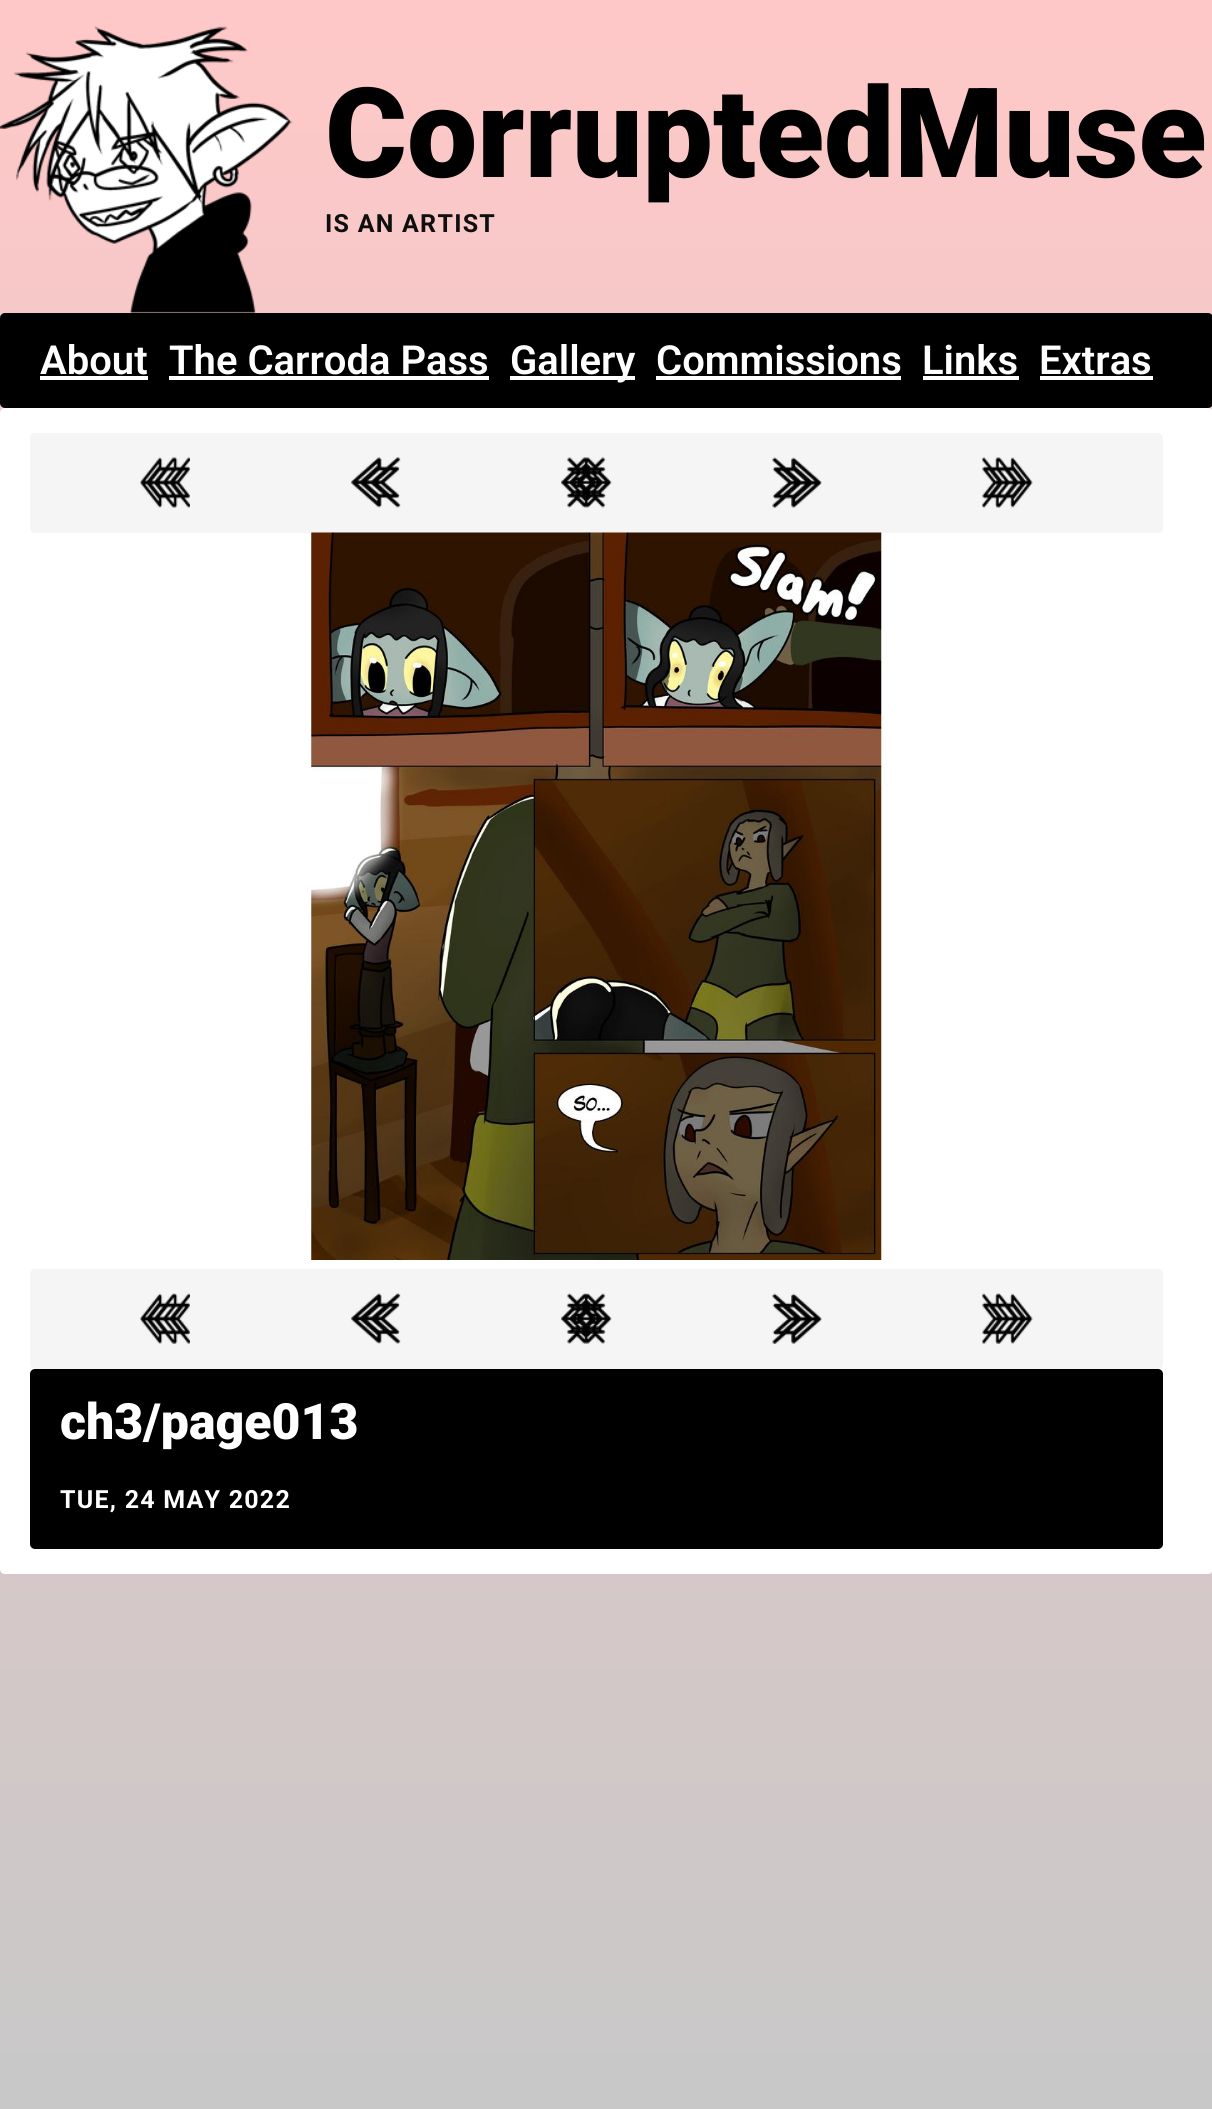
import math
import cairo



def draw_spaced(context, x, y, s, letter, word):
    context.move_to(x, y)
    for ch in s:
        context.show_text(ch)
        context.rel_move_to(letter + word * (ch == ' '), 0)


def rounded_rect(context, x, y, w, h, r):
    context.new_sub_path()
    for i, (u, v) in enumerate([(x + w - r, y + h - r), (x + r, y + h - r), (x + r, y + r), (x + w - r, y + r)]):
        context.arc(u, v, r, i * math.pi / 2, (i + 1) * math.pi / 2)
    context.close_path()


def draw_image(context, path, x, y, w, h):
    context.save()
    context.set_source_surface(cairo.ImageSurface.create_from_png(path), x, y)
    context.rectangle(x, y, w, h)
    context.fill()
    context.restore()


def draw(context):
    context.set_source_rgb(1, 1, 1)
    context.paint()
    gradient = cairo.LinearGradient(606, 0, 606, 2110)
    gradient.add_color_stop_rgba(0, 1, 200 / 255, 200 / 255, 1)
    gradient.add_color_stop_rgba(1, 200 / 255, 200 / 255, 200 / 255, 1)
    context.set_source(gradient)
    context.rectangle(0, 0, 1212, 2109)
    context.fill()
    draw_image(context, "images/1.png", 0, 26, 293, 287)
    context.set_source_rgb(0, 0, 0)
    rounded_rect(context, 0, 313, 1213, 95, 5)
    context.fill()
    context.set_source_rgb(1, 1, 1)
    context.rectangle(40, 376, 108, 4)
    context.fill()
    context.rectangle(169, 376, 320, 4)
    context.fill()
    context.rectangle(510, 376, 125, 4)
    context.fill()
    context.rectangle(656, 376, 245, 4)
    context.fill()
    context.rectangle(923, 376, 96, 4)
    context.fill()
    context.rectangle(1040, 376, 113, 4)
    context.fill()
    rounded_rect(context, 0, 408, 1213, 1166, 5)
    context.fill()
    context.set_source_rgb(245 / 255, 245 / 255, 245 / 255)
    rounded_rect(context, 30, 433, 1133, 100, 5)
    context.fill()
    draw_image(context, "images/2.png", 140, 457, 50, 51)
    draw_image(context, "images/3.png", 351, 457, 50, 51)
    draw_image(context, "images/4.png", 561, 457, 51, 51)
    draw_image(context, "images/5.png", 772, 457, 50, 51)
    draw_image(context, "images/6.png", 982, 457, 51, 51)
    draw_image(context, "images/7.png", 311, 532, 571, 728)
    rounded_rect(context, 30, 1269, 1133, 100, 5)
    context.fill()
    draw_image(context, "images/8.png", 140, 1293, 50, 51)
    draw_image(context, "images/9.png", 351, 1293, 50, 51)
    draw_image(context, "images/10.png", 561, 1293, 51, 51)
    draw_image(context, "images/11.png", 772, 1293, 50, 51)
    draw_image(context, "images/12.png", 982, 1293, 51, 51)
    context.set_source_rgb(0, 0, 0)
    rounded_rect(context, 30, 1369, 1133, 180, 5)
    context.fill()
    context.select_font_face("Roboto Black")
    context.set_font_size(125)
    context.move_to(325, 177)
    context.show_text("CorruptedMuse")
    context.select_font_face("Roboto", cairo.FontSlant.NORMAL, cairo.FontWeight.BOLD)
    context.set_font_size(25)
    context.set_source_rgb(15 / 255, 15 / 255, 15 / 255)
    draw_spaced(context, 325, 232, "IS AN ARTIST", 1.25, 0)
    context.select_font_face("Roboto SemiBold")
    context.set_font_size(40)
    context.set_source_rgb(1, 1, 1)
    context.move_to(40, 374)
    context.show_text("About")
    context.move_to(169, 374)
    context.show_text("The Carroda Pass")
    context.move_to(510, 374)
    context.show_text("Gallery")
    context.move_to(656, 374)
    context.show_text("Commissions")
    context.move_to(922, 374)
    context.show_text("Links")
    context.move_to(1039, 374)
    context.show_text("Extras")
    context.select_font_face("Roboto Black")
    context.set_font_size(50)
    context.move_to(60, 1439)
    context.show_text("ch3/page013")
    context.select_font_face("Roboto", cairo.FontSlant.NORMAL, cairo.FontWeight.BOLD)
    context.set_font_size(25)
    draw_spaced(context, 60, 1508, "TUE, 24 MAY 2022", 1.25, 0)


surface = cairo.ImageSurface(cairo.Format.RGB24, 1212, 2109)
context = cairo.Context(surface)
options = cairo.FontOptions()
options.set_hint_metrics(cairo.HintMetrics.OFF)
options.set_hint_style(cairo.HintStyle.NONE)
context.set_font_options(options)
context.set_miter_limit(4)
draw(context)
surface.write_to_png("out.png")
